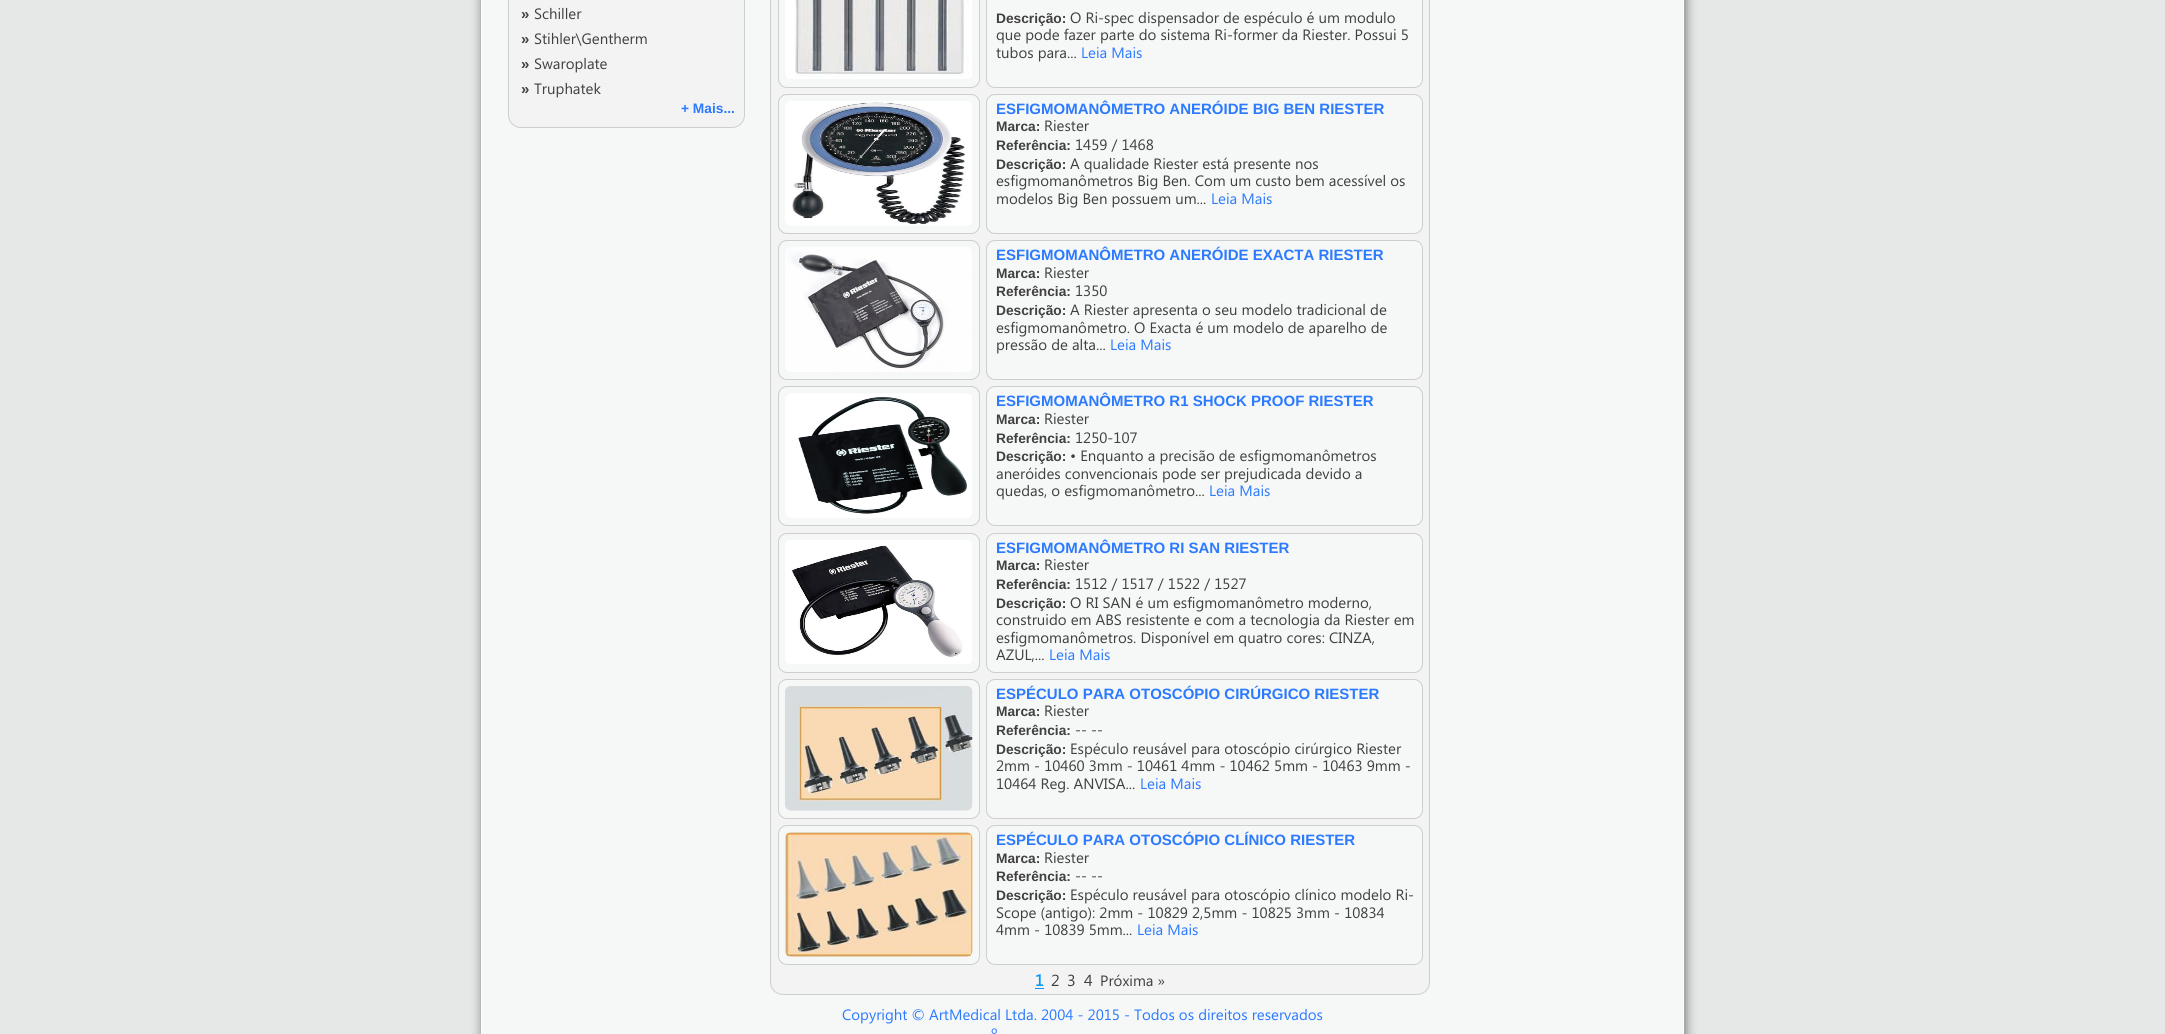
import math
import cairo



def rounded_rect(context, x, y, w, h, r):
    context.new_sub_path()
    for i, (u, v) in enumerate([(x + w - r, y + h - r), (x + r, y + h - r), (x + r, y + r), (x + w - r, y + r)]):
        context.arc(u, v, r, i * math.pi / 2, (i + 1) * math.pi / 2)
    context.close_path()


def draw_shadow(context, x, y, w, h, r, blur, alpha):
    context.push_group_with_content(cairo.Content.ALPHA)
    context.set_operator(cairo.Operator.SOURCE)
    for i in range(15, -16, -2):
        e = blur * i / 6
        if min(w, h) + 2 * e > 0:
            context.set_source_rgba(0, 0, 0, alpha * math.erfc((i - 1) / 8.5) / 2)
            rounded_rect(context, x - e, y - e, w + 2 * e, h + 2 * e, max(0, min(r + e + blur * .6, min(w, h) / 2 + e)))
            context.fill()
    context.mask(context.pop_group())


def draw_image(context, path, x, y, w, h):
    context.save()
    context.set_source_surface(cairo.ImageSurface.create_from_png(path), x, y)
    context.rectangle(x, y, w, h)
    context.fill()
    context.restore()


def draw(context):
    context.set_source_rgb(230 / 255, 232 / 255, 232 / 255)
    context.paint()
    context.set_source_rgb(102 / 255, 102 / 255, 102 / 255)
    draw_shadow(context, 483, -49, 1202, 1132, 31, 6, 1)
    context.set_source_rgb(246 / 255, 247 / 255, 247 / 255)
    context.rectangle(481.5, -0.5, 1202, 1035)
    context.fill_preserve()
    context.set_source_rgb(1, 1, 1)
    context.set_line_width(1)
    context.stroke()
    context.set_source_rgb(243 / 255, 243 / 255, 243 / 255)
    rounded_rect(context, 508.5, -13.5, 236, 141, 12.5)
    context.fill_preserve()
    context.set_source_rgb(203 / 255, 207 / 255, 207 / 255)
    context.stroke()
    context.set_source_rgb(243 / 255, 243 / 255, 243 / 255)
    rounded_rect(context, 770.5, -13.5, 659, 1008, 12.5)
    context.fill_preserve()
    context.set_source_rgb(203 / 255, 207 / 255, 207 / 255)
    context.stroke()
    context.set_source_rgb(246 / 255, 247 / 255, 247 / 255)
    rounded_rect(context, 778.5, -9.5, 201, 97, 8.5)
    context.fill_preserve()
    context.set_source_rgb(203 / 255, 207 / 255, 207 / 255)
    context.stroke()
    draw_image(context, "images/1.png", 785, 0, 187, 79)
    context.set_source_rgb(246 / 255, 247 / 255, 247 / 255)
    rounded_rect(context, 986.5, -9.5, 436, 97, 8.5)
    context.fill_preserve()
    context.set_source_rgb(203 / 255, 207 / 255, 207 / 255)
    context.stroke()
    context.set_source_rgb(246 / 255, 247 / 255, 247 / 255)
    rounded_rect(context, 778.5, 94.5, 201, 139, 8.5)
    context.fill_preserve()
    context.set_source_rgb(203 / 255, 207 / 255, 207 / 255)
    context.stroke()
    draw_image(context, "images/2.png", 785, 101, 187, 125)
    context.set_source_rgb(246 / 255, 247 / 255, 247 / 255)
    rounded_rect(context, 986.5, 94.5, 436, 139, 8.5)
    context.fill_preserve()
    context.set_source_rgb(203 / 255, 207 / 255, 207 / 255)
    context.stroke()
    context.set_source_rgb(246 / 255, 247 / 255, 247 / 255)
    rounded_rect(context, 778.5, 240.5, 201, 139, 8.5)
    context.fill_preserve()
    context.set_source_rgb(203 / 255, 207 / 255, 207 / 255)
    context.stroke()
    draw_image(context, "images/3.png", 785, 247, 187, 125)
    context.set_source_rgb(246 / 255, 247 / 255, 247 / 255)
    rounded_rect(context, 986.5, 240.5, 436, 139, 8.5)
    context.fill_preserve()
    context.set_source_rgb(203 / 255, 207 / 255, 207 / 255)
    context.stroke()
    context.set_source_rgb(246 / 255, 247 / 255, 247 / 255)
    rounded_rect(context, 778.5, 386.5, 201, 139, 8.5)
    context.fill_preserve()
    context.set_source_rgb(203 / 255, 207 / 255, 207 / 255)
    context.stroke()
    draw_image(context, "images/4.png", 785, 393, 187, 125)
    context.set_source_rgb(246 / 255, 247 / 255, 247 / 255)
    rounded_rect(context, 986.5, 386.5, 436, 139, 8.5)
    context.fill_preserve()
    context.set_source_rgb(203 / 255, 207 / 255, 207 / 255)
    context.stroke()
    context.set_source_rgb(246 / 255, 247 / 255, 247 / 255)
    rounded_rect(context, 778.5, 533.5, 201, 139, 8.5)
    context.fill_preserve()
    context.set_source_rgb(203 / 255, 207 / 255, 207 / 255)
    context.stroke()
    draw_image(context, "images/5.png", 785, 540, 187, 124)
    context.set_source_rgb(246 / 255, 247 / 255, 247 / 255)
    rounded_rect(context, 986.5, 533.5, 436, 139, 8.5)
    context.fill_preserve()
    context.set_source_rgb(203 / 255, 207 / 255, 207 / 255)
    context.stroke()
    context.set_source_rgb(246 / 255, 247 / 255, 247 / 255)
    rounded_rect(context, 778.5, 679.5, 201, 139, 8.5)
    context.fill_preserve()
    context.set_source_rgb(203 / 255, 207 / 255, 207 / 255)
    context.stroke()
    draw_image(context, "images/6.png", 785, 686, 188, 125)
    context.set_source_rgb(246 / 255, 247 / 255, 247 / 255)
    rounded_rect(context, 986.5, 679.5, 436, 139, 8.5)
    context.fill_preserve()
    context.set_source_rgb(203 / 255, 207 / 255, 207 / 255)
    context.stroke()
    context.set_source_rgb(246 / 255, 247 / 255, 247 / 255)
    rounded_rect(context, 778.5, 825.5, 201, 139, 8.5)
    context.fill_preserve()
    context.set_source_rgb(203 / 255, 207 / 255, 207 / 255)
    context.stroke()
    draw_image(context, "images/7.png", 785, 832, 188, 125)
    context.set_source_rgb(246 / 255, 247 / 255, 247 / 255)
    rounded_rect(context, 986.5, 825.5, 436, 139, 8.5)
    context.fill_preserve()
    context.set_source_rgb(203 / 255, 207 / 255, 207 / 255)
    context.stroke()
    context.set_source_rgb(0, 153 / 255, 1)
    context.rectangle(1035, 988, 9, 1)
    context.fill()
    context.select_font_face("Liberation Sans", cairo.FontSlant.NORMAL, cairo.FontWeight.BOLD)
    context.set_font_size(15)
    context.set_source_rgb(64 / 255, 64 / 255, 64 / 255)
    context.move_to(521, 19)
    context.show_text("»")
    context.select_font_face("Segoe UI")
    context.move_to(534, 19)
    context.show_text("Schiller")
    context.select_font_face("Liberation Sans", cairo.FontSlant.NORMAL, cairo.FontWeight.BOLD)
    context.move_to(521, 44)
    context.show_text("»")
    context.select_font_face("Segoe UI")
    context.move_to(534, 44)
    context.show_text("Stihler\\Gentherm")
    context.select_font_face("Liberation Sans", cairo.FontSlant.NORMAL, cairo.FontWeight.BOLD)
    context.move_to(521, 69)
    context.show_text("»")
    context.select_font_face("Segoe UI")
    context.move_to(534, 69)
    context.show_text("Swaroplate")
    context.select_font_face("Liberation Sans", cairo.FontSlant.NORMAL, cairo.FontWeight.BOLD)
    context.move_to(521, 94)
    context.show_text("»")
    context.select_font_face("Segoe UI")
    context.move_to(534, 94)
    context.show_text("Truphatek")
    context.select_font_face("Liberation Sans", cairo.FontSlant.NORMAL, cairo.FontWeight.BOLD)
    context.set_font_size(13.75)
    context.set_source_rgb(43 / 255, 122 / 255, 1)
    context.move_to(681, 113)
    context.show_text("+ Mais...")
    context.set_source_rgb(64 / 255, 64 / 255, 64 / 255)
    context.move_to(996, 23)
    context.show_text("Descrição:")
    context.select_font_face("Segoe UI")
    context.set_font_size(15)
    context.move_to(1070, 23)
    context.show_text("O Ri-spec dispensador de espéculo é um modulo")
    context.move_to(996, 40)
    context.show_text("que pode fazer parte do sistema Ri-former da Riester. Possui 5")
    context.move_to(996, 58)
    context.show_text("tubos para...")
    context.set_source_rgb(43 / 255, 122 / 255, 1)
    context.move_to(1081, 58)
    context.show_text("Leia Mais")
    context.select_font_face("Liberation Sans", cairo.FontSlant.NORMAL, cairo.FontWeight.BOLD)
    context.move_to(996, 114)
    context.show_text("ESFIGMOMANÔMETRO ANERÓIDE BIG BEN RIESTER")
    context.set_font_size(13.75)
    context.set_source_rgb(64 / 255, 64 / 255, 64 / 255)
    context.move_to(996, 131)
    context.show_text("Marca:")
    context.select_font_face("Segoe UI")
    context.set_font_size(15)
    context.move_to(1044, 131)
    context.show_text("Riester")
    context.select_font_face("Liberation Sans", cairo.FontSlant.NORMAL, cairo.FontWeight.BOLD)
    context.set_font_size(13.75)
    context.move_to(996, 150)
    context.show_text("Referência:")
    context.select_font_face("Segoe UI")
    context.set_font_size(15)
    context.move_to(1075, 150)
    context.show_text("1459 / 1468")
    context.select_font_face("Liberation Sans", cairo.FontSlant.NORMAL, cairo.FontWeight.BOLD)
    context.set_font_size(13.75)
    context.move_to(996, 169)
    context.show_text("Descrição:")
    context.select_font_face("Segoe UI")
    context.set_font_size(15)
    context.move_to(1070, 169)
    context.show_text("A qualidade Riester está presente nos")
    context.move_to(996, 186)
    context.show_text("esfigmomanômetros Big Ben. Com um custo bem acessível os")
    context.move_to(996, 204)
    context.show_text("modelos Big Ben possuem um...")
    context.set_source_rgb(43 / 255, 122 / 255, 1)
    context.move_to(1211, 204)
    context.show_text("Leia Mais")
    context.select_font_face("Liberation Sans", cairo.FontSlant.NORMAL, cairo.FontWeight.BOLD)
    context.move_to(996, 260)
    context.show_text("ESFIGMOMANÔMETRO ANERÓIDE EXACTA RIESTER")
    context.set_font_size(13.75)
    context.set_source_rgb(64 / 255, 64 / 255, 64 / 255)
    context.move_to(996, 278)
    context.show_text("Marca:")
    context.select_font_face("Segoe UI")
    context.set_font_size(15)
    context.move_to(1044, 278)
    context.show_text("Riester")
    context.select_font_face("Liberation Sans", cairo.FontSlant.NORMAL, cairo.FontWeight.BOLD)
    context.set_font_size(13.75)
    context.move_to(996, 296)
    context.show_text("Referência:")
    context.select_font_face("Segoe UI")
    context.set_font_size(15)
    context.move_to(1075, 296)
    context.show_text("1350")
    context.select_font_face("Liberation Sans", cairo.FontSlant.NORMAL, cairo.FontWeight.BOLD)
    context.set_font_size(13.75)
    context.move_to(996, 315)
    context.show_text("Descrição:")
    context.select_font_face("Segoe UI")
    context.set_font_size(15)
    context.move_to(1070, 315)
    context.show_text("A Riester apresenta o seu modelo tradicional de")
    context.move_to(996, 333)
    context.show_text("esfigmomanômetro. O Exacta é um modelo de aparelho de")
    context.move_to(996, 350)
    context.show_text("pressão de alta...")
    context.set_source_rgb(43 / 255, 122 / 255, 1)
    context.move_to(1110, 350)
    context.show_text("Leia Mais")
    context.select_font_face("Liberation Sans", cairo.FontSlant.NORMAL, cairo.FontWeight.BOLD)
    context.move_to(996, 406)
    context.show_text("ESFIGMOMANÔMETRO R1 SHOCK PROOF RIESTER")
    context.set_font_size(13.75)
    context.set_source_rgb(64 / 255, 64 / 255, 64 / 255)
    context.move_to(996, 424)
    context.show_text("Marca:")
    context.select_font_face("Segoe UI")
    context.set_font_size(15)
    context.move_to(1044, 424)
    context.show_text("Riester")
    context.select_font_face("Liberation Sans", cairo.FontSlant.NORMAL, cairo.FontWeight.BOLD)
    context.set_font_size(13.75)
    context.move_to(996, 443)
    context.show_text("Referência:")
    context.select_font_face("Segoe UI")
    context.set_font_size(15)
    context.move_to(1075, 443)
    context.show_text("1250-107")
    context.select_font_face("Liberation Sans", cairo.FontSlant.NORMAL, cairo.FontWeight.BOLD)
    context.set_font_size(13.75)
    context.move_to(996, 461)
    context.show_text("Descrição:")
    context.select_font_face("Segoe UI")
    context.set_font_size(15)
    context.move_to(1070, 461)
    context.show_text("• Enquanto a precisão de esfigmomanômetros")
    context.move_to(996, 479)
    context.show_text("aneróides convencionais pode ser prejudicada devido a")
    context.move_to(996, 496)
    context.show_text("quedas, o esfigmomanômetro...")
    context.set_source_rgb(43 / 255, 122 / 255, 1)
    context.move_to(1209, 496)
    context.show_text("Leia Mais")
    context.select_font_face("Liberation Sans", cairo.FontSlant.NORMAL, cairo.FontWeight.BOLD)
    context.move_to(996, 553)
    context.show_text("ESFIGMOMANÔMETRO RI SAN RIESTER")
    context.set_font_size(13.75)
    context.set_source_rgb(64 / 255, 64 / 255, 64 / 255)
    context.move_to(996, 570)
    context.show_text("Marca:")
    context.select_font_face("Segoe UI")
    context.set_font_size(15)
    context.move_to(1044, 570)
    context.show_text("Riester")
    context.select_font_face("Liberation Sans", cairo.FontSlant.NORMAL, cairo.FontWeight.BOLD)
    context.set_font_size(13.75)
    context.move_to(996, 589)
    context.show_text("Referência:")
    context.select_font_face("Segoe UI")
    context.set_font_size(15)
    context.move_to(1075, 589)
    context.show_text("1512 / 1517 / 1522 / 1527")
    context.select_font_face("Liberation Sans", cairo.FontSlant.NORMAL, cairo.FontWeight.BOLD)
    context.set_font_size(13.75)
    context.move_to(996, 608)
    context.show_text("Descrição:")
    context.select_font_face("Segoe UI")
    context.set_font_size(15)
    context.move_to(1070, 608)
    context.show_text("O RI SAN é um esfigmomanômetro moderno,")
    context.move_to(996, 625)
    context.show_text("construido em ABS resistente e com a tecnologia da Riester em")
    context.move_to(996, 643)
    context.show_text("esfigmomanômetros. Disponível em quatro cores: CINZA,")
    context.move_to(996, 660)
    context.show_text("AZUL,...")
    context.set_source_rgb(43 / 255, 122 / 255, 1)
    context.move_to(1049, 660)
    context.show_text("Leia Mais")
    context.select_font_face("Liberation Sans", cairo.FontSlant.NORMAL, cairo.FontWeight.BOLD)
    context.move_to(996, 699)
    context.show_text("ESPÉCULO PARA OTOSCÓPIO CIRÚRGICO RIESTER")
    context.set_font_size(13.75)
    context.set_source_rgb(64 / 255, 64 / 255, 64 / 255)
    context.move_to(996, 716)
    context.show_text("Marca:")
    context.select_font_face("Segoe UI")
    context.set_font_size(15)
    context.move_to(1044, 716)
    context.show_text("Riester")
    context.select_font_face("Liberation Sans", cairo.FontSlant.NORMAL, cairo.FontWeight.BOLD)
    context.set_font_size(13.75)
    context.move_to(996, 735)
    context.show_text("Referência:")
    context.select_font_face("Segoe UI")
    context.set_font_size(15)
    context.move_to(1075, 735)
    context.show_text("-- --")
    context.select_font_face("Liberation Sans", cairo.FontSlant.NORMAL, cairo.FontWeight.BOLD)
    context.set_font_size(13.75)
    context.move_to(996, 754)
    context.show_text("Descrição:")
    context.select_font_face("Segoe UI")
    context.set_font_size(15)
    context.move_to(1070, 754)
    context.show_text("Espéculo reusável para otoscópio cirúrgico Riester")
    context.move_to(996, 771)
    context.show_text("2mm - 10460 3mm - 10461 4mm - 10462 5mm - 10463 9mm -")
    context.move_to(996, 789)
    context.show_text("10464 Reg. ANVISA...")
    context.set_source_rgb(43 / 255, 122 / 255, 1)
    context.move_to(1140, 789)
    context.show_text("Leia Mais")
    context.select_font_face("Liberation Sans", cairo.FontSlant.NORMAL, cairo.FontWeight.BOLD)
    context.move_to(996, 845)
    context.show_text("ESPÉCULO PARA OTOSCÓPIO CLÍNICO RIESTER")
    context.set_font_size(13.75)
    context.set_source_rgb(64 / 255, 64 / 255, 64 / 255)
    context.move_to(996, 863)
    context.show_text("Marca:")
    context.select_font_face("Segoe UI")
    context.set_font_size(15)
    context.move_to(1044, 863)
    context.show_text("Riester")
    context.select_font_face("Liberation Sans", cairo.FontSlant.NORMAL, cairo.FontWeight.BOLD)
    context.set_font_size(13.75)
    context.move_to(996, 881)
    context.show_text("Referência:")
    context.select_font_face("Segoe UI")
    context.set_font_size(15)
    context.move_to(1075, 881)
    context.show_text("-- --")
    context.select_font_face("Liberation Sans", cairo.FontSlant.NORMAL, cairo.FontWeight.BOLD)
    context.set_font_size(13.75)
    context.move_to(996, 900)
    context.show_text("Descrição:")
    context.select_font_face("Segoe UI")
    context.set_font_size(15)
    context.move_to(1070, 900)
    context.show_text("Espéculo reusável para otoscópio clínico modelo Ri-")
    context.move_to(996, 918)
    context.show_text("Scope (antigo): 2mm - 10829 2,5mm - 10825 3mm - 10834")
    context.move_to(996, 935)
    context.show_text("4mm - 10839 5mm...")
    context.set_source_rgb(43 / 255, 122 / 255, 1)
    context.move_to(1137, 935)
    context.show_text("Leia Mais")
    context.select_font_face("Segoe UI", cairo.FontSlant.NORMAL, cairo.FontWeight.BOLD)
    context.set_font_size(16)
    context.set_source_rgb(0, 153 / 255, 1)
    context.move_to(1035, 986)
    context.show_text("1")
    context.select_font_face("Segoe UI")
    context.set_source_rgb(64 / 255, 64 / 255, 64 / 255)
    context.move_to(1051, 986)
    context.show_text("2")
    context.move_to(1067, 986)
    context.show_text("3")
    context.move_to(1084, 986)
    context.show_text("4")
    context.set_font_size(15)
    context.move_to(1100, 986)
    context.show_text("Próxima »")
    context.set_source_rgb(43 / 255, 122 / 255, 1)
    context.move_to(842, 1020)
    context.show_text("Copyright © ArtMedical Ltda. 2004 - 2015 - Todos os direitos reservados")
    context.move_to(991, 1039)
    context.show_text("º")


surface = cairo.ImageSurface(cairo.Format.RGB24, 2165, 1034)
context = cairo.Context(surface)
options = cairo.FontOptions()
options.set_hint_metrics(cairo.HintMetrics.OFF)
options.set_hint_style(cairo.HintStyle.NONE)
context.set_font_options(options)
context.set_miter_limit(4)
draw(context)
surface.write_to_png("out.png")
